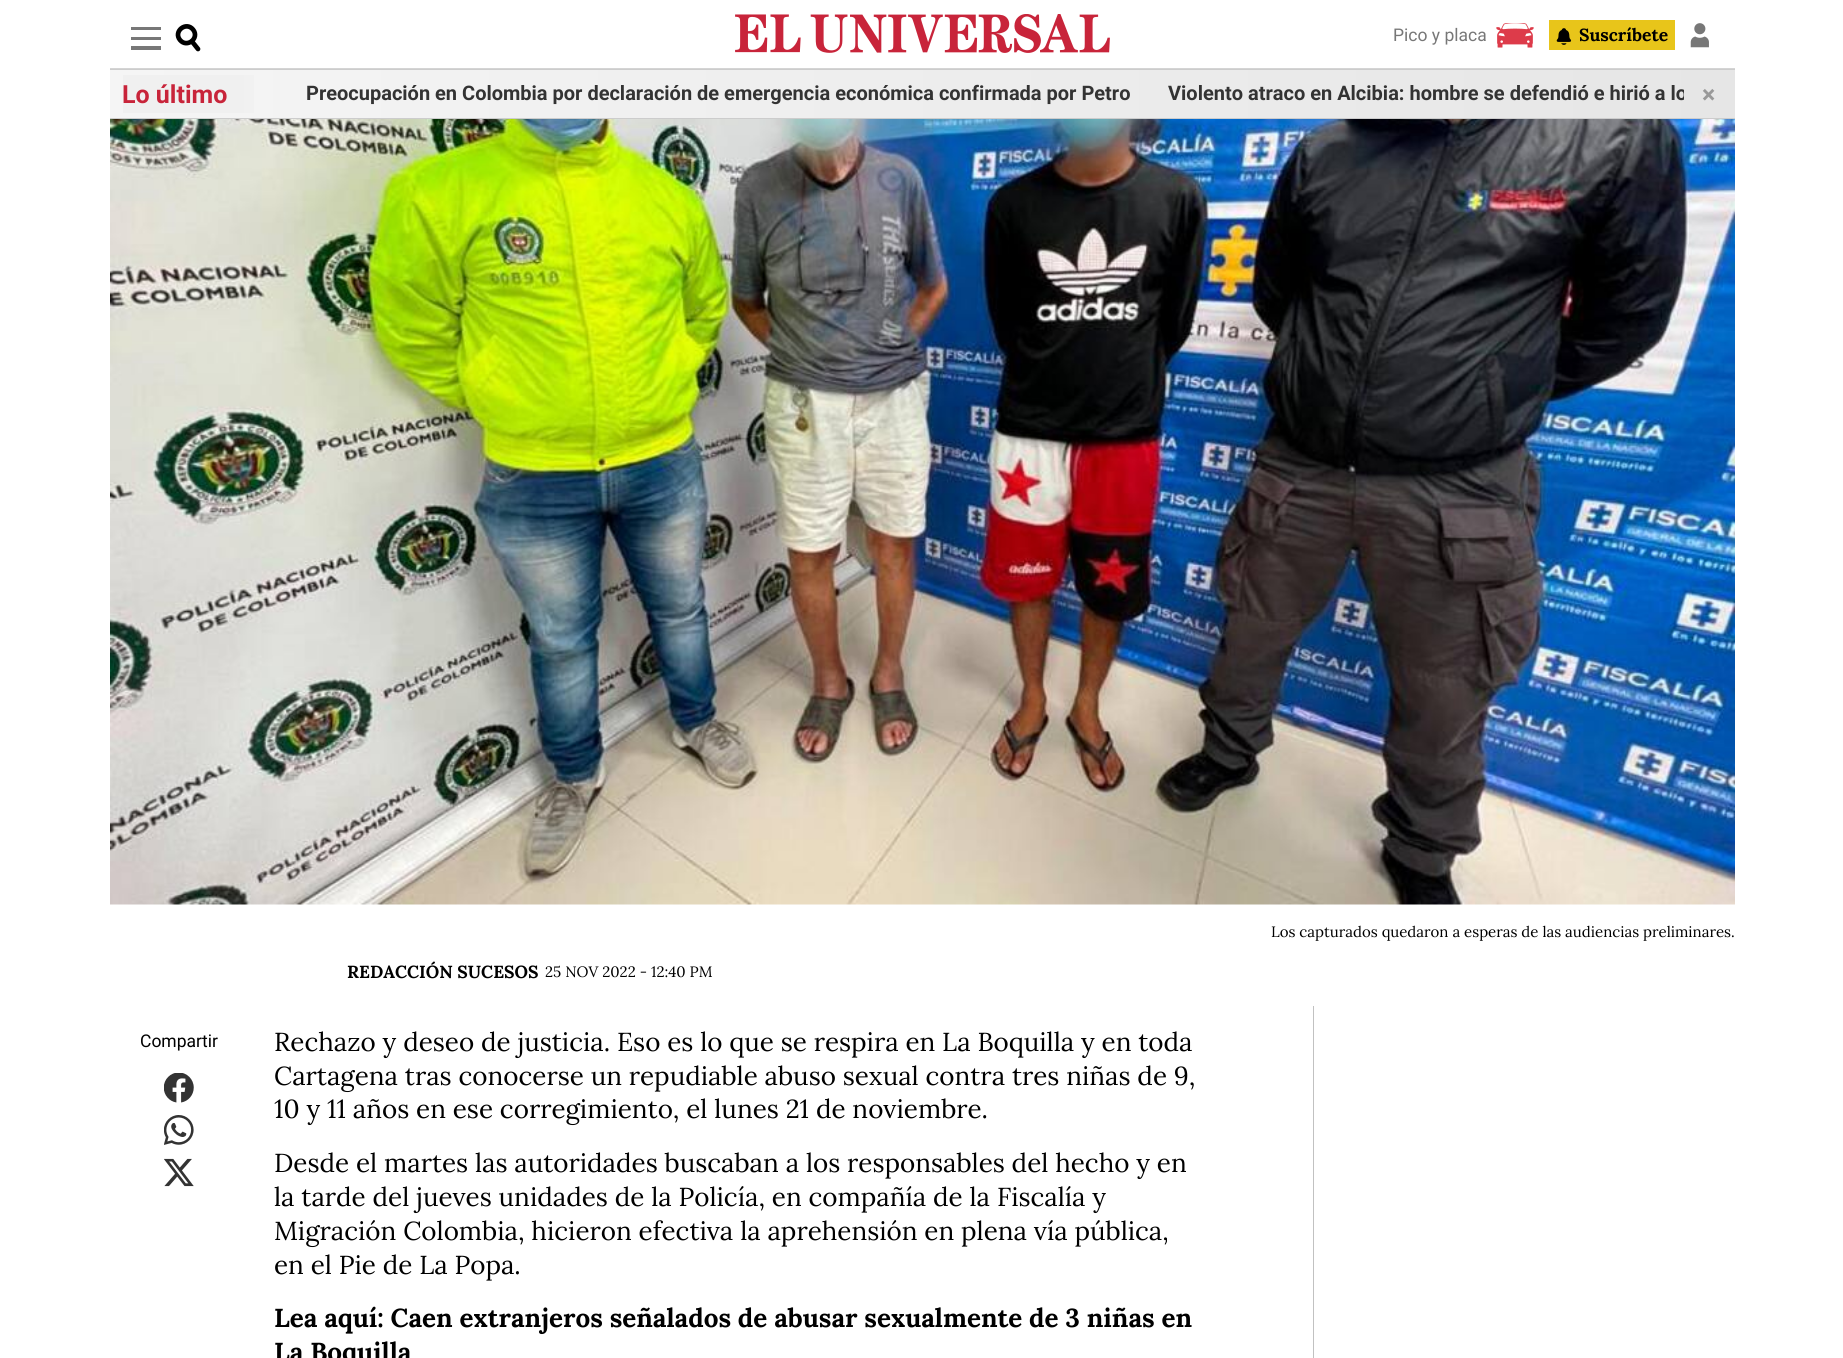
import math
import cairo



def draw_image(context, path, x, y, w, h):
    context.save()
    context.set_source_surface(cairo.ImageSurface.create_from_png(path), x, y)
    context.rectangle(x, y, w, h)
    context.fill()
    context.restore()


def draw(context):
    context.set_source_rgb(1, 1, 1)
    context.paint()
    context.set_source_rgb(212 / 255, 212 / 255, 212 / 255)
    context.rectangle(110, 68, 1625, 1)
    context.fill()
    context.set_source_rgb(119 / 255, 119 / 255, 119 / 255)
    context.rectangle(131, 27, 30, 3)
    context.fill()
    context.rectangle(131, 37, 30, 3)
    context.fill()
    context.rectangle(131, 46, 30, 4)
    context.fill()
    context.new_path()
    context.move_to(193, 29.5)
    context.curve_to(200, 38, 187, 48.5, 180, 40)
    context.curve_to(173, 31.5, 186, 21, 193, 29.5)
    context.close_path()
    context.set_source_rgb(0, 0, 0)
    context.set_line_width(4.7)
    context.stroke()
    context.new_path()
    context.move_to(192, 41.5)
    context.line_to(198, 49)
    context.set_line_cap(cairo.LineCap.ROUND)
    context.stroke()
    draw_image(context, "images/1.png", 735, 14, 375, 39)
    draw_image(context, "images/2.png", 1496, 23, 38, 25)
    context.set_source_rgb(232 / 255, 197 / 255, 26 / 255)
    context.rectangle(1549, 20, 126, 30)
    context.fill()
    draw_image(context, "images/3.png", 1556, 28, 16, 17)
    draw_image(context, "images/4.png", 1690, 23, 19, 25)
    gradient = cairo.LinearGradient(110, 94, 1735, 94)
    gradient.add_color_stop_rgba(0, 245 / 255, 245 / 255, 245 / 255, 1)
    gradient.add_color_stop_rgba(1, 230 / 255, 230 / 255, 230 / 255, 1)
    context.set_source(gradient)
    context.rectangle(110, 70, 1625, 48)
    context.fill()
    context.set_source_rgb(204 / 255, 204 / 255, 204 / 255)
    context.rectangle(110, 69, 1625, 1)
    context.fill()
    context.rectangle(110, 118, 1625, 1)
    context.fill()
    gradient = cairo.LinearGradient(83, 94, 278, 94)
    gradient.add_color_stop_rgba(0.8, 240 / 255, 240 / 255, 240 / 255, 1)
    gradient.add_color_stop_rgba(1, 244 / 255, 244 / 255, 244 / 255, 1)
    context.set_source(gradient)
    context.rectangle(123, 75, 131, 38)
    context.fill()
    draw_image(context, "images/5.png", 110, 119, 1625, 786)
    draw_image(context, "images/6.png", 164, 1073, 30, 30)
    draw_image(context, "images/7.png", 164, 1115, 30, 30)
    draw_image(context, "images/8.png", 164, 1158, 30, 29)
    context.set_source_rgb(193 / 255, 193 / 255, 193 / 255)
    context.rectangle(1313, 1006, 1, 352)
    context.fill()
    context.select_font_face("Roboto")
    context.set_font_size(17.5)
    context.set_source_rgb(119 / 255, 119 / 255, 119 / 255)
    context.move_to(1393, 41)
    context.show_text("Pico y placa")
    context.select_font_face("Lora", cairo.FontSlant.NORMAL, cairo.FontWeight.BOLD)
    context.set_source_rgb(0, 0, 0)
    context.move_to(1579, 41)
    context.show_text("Suscríbete")
    context.select_font_face("Roboto", cairo.FontSlant.NORMAL, cairo.FontWeight.BOLD)
    context.set_font_size(25)
    context.set_source_rgb(200 / 255, 36 / 255, 58 / 255)
    context.move_to(122, 103)
    context.show_text("Lo último")
    context.set_font_size(20)
    context.set_source_rgb(51 / 255, 51 / 255, 51 / 255)
    context.move_to(306, 100)
    context.show_text("Preocupación en Colombia por declaración de emergencia económica confirmada por Petro")
    context.save()
    context.rectangle(123, 75, 1561, 38)
    context.clip()
    context.move_to(1168, 100)
    context.show_text("Violento atraco en Alcibia: hombre se defendió e hirió a lo")
    context.restore()
    context.set_font_size(25)
    context.set_source_rgb(153 / 255, 153 / 255, 153 / 255)
    context.move_to(1702, 103)
    context.show_text("×")
    context.select_font_face("Lora")
    context.set_font_size(15)
    context.set_source_rgb(0, 0, 0)
    context.move_to(1271, 937)
    context.show_text("Los capturados quedaron a esperas de las audiencias preliminares.")
    context.select_font_face("Lora", cairo.FontSlant.NORMAL, cairo.FontWeight.BOLD)
    context.set_font_size(17.5)
    context.move_to(347, 978)
    context.show_text("REDACCIÓN SUCESOS")
    context.select_font_face("Lora")
    context.set_font_size(15)
    context.move_to(545, 977)
    context.show_text("25 NOV 2022 - 12:40 PM")
    context.select_font_face("Roboto")
    context.set_font_size(17.5)
    context.move_to(140, 1047)
    context.show_text("Compartir")
    context.select_font_face("Lora")
    context.set_font_size(26)
    context.move_to(274, 1051)
    context.show_text("Rechazo y deseo de justicia. Eso es lo que se respira en La Boquilla y en toda")
    context.move_to(274, 1085)
    context.show_text("Cartagena tras conocerse un repudiable abuso sexual contra tres niñas de 9,")
    context.move_to(274, 1118)
    context.show_text("10 y 11 años en ese corregimiento, el lunes 21 de noviembre.")
    context.move_to(274, 1172)
    context.show_text("Desde el martes las autoridades buscaban a los responsables del hecho y en")
    context.move_to(274, 1206)
    context.show_text("la tarde del jueves unidades de la Policía, en compañía de la Fiscalía y")
    context.move_to(274, 1240)
    context.show_text("Migración Colombia, hicieron efectiva la aprehensión en plena vía pública,")
    context.move_to(274, 1274)
    context.show_text("en el Pie de La Popa.")
    context.select_font_face("Lora", cairo.FontSlant.NORMAL, cairo.FontWeight.BOLD)
    context.move_to(274, 1327)
    context.show_text("Lea aquí: Caen extranjeros señalados de abusar sexualmente de 3 niñas en")
    context.move_to(274, 1361)
    context.show_text("La Boquilla")


surface = cairo.ImageSurface(cairo.Format.RGB24, 1843, 1358)
context = cairo.Context(surface)
options = cairo.FontOptions()
options.set_hint_metrics(cairo.HintMetrics.OFF)
options.set_hint_style(cairo.HintStyle.NONE)
context.set_font_options(options)
context.set_miter_limit(4)
draw(context)
surface.write_to_png("out.png")
